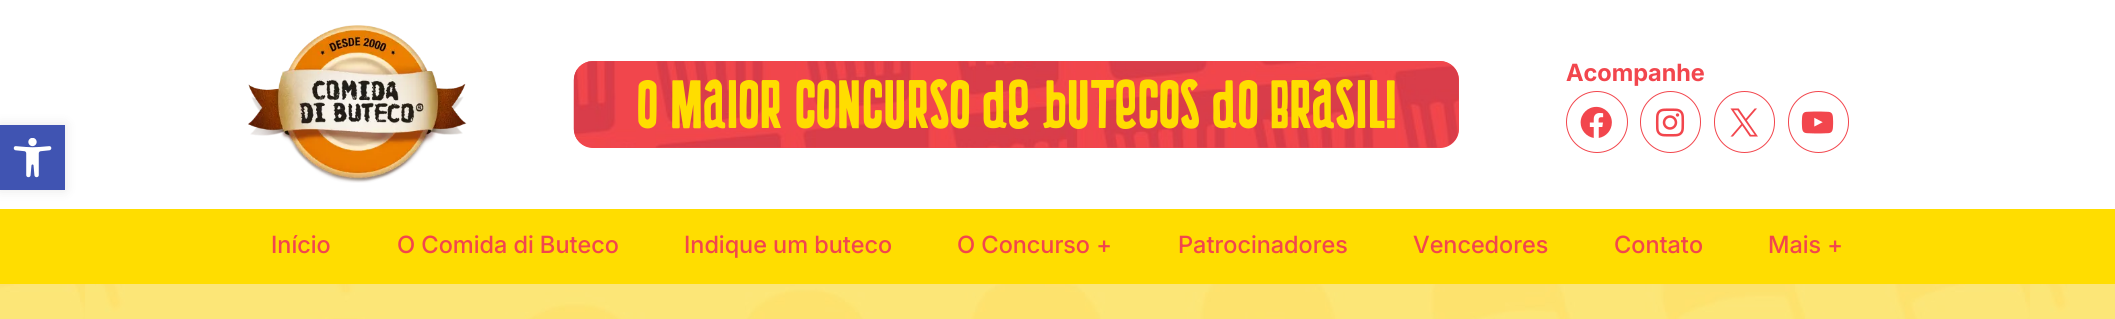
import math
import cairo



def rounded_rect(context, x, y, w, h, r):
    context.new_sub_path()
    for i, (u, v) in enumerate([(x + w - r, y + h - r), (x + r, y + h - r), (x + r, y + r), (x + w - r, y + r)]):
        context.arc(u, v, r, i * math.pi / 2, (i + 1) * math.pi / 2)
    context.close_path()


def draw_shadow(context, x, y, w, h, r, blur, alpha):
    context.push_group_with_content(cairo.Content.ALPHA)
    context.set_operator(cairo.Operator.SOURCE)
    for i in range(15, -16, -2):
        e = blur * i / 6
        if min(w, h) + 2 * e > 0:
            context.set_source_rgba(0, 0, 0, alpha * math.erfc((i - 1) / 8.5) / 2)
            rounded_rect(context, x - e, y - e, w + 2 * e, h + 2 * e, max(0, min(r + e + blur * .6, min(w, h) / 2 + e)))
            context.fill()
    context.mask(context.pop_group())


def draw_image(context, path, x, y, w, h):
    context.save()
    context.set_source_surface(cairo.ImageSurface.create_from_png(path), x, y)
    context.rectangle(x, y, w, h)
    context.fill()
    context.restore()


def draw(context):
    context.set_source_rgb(1, 1, 1)
    context.paint()
    context.set_source_rgb(0, 0, 0)
    draw_shadow(context, 0, 125, 65, 65, 0, 6, 0.1)
    context.set_source_rgb(64 / 255, 84 / 255, 178 / 255)
    context.rectangle(0, 125, 65, 65)
    context.fill()
    draw_image(context, "images/1.png", 13, 138, 39, 40)
    draw_image(context, "images/2.png", 248, 25, 219, 158)
    context.arc(1597, 122, 30.5, 0, 2 * math.pi)
    context.set_source_rgb(242 / 255, 70 / 255, 77 / 255)
    context.set_line_width(1)
    context.stroke()
    draw_image(context, "images/3.png", 1580, 106, 32, 32)
    rounded_rect(context, 1640.5, 91.5, 60, 61, 30)
    context.stroke()
    draw_image(context, "images/4.png", 1655, 108, 30, 29)
    rounded_rect(context, 1714.5, 91.5, 60, 61, 30)
    context.stroke()
    draw_image(context, "images/5.png", 1730, 108, 28, 29)
    rounded_rect(context, 1788.5, 91.5, 60, 61, 30)
    context.stroke()
    draw_image(context, "images/6.png", 1801, 111, 33, 23)
    rounded_rect(context, 574, 61, 885, 87, 19)
    context.fill()
    draw_image(context, "images/7.png", 573, 61, 886, 87)
    context.set_source_rgb(1, 221 / 255, 0)
    context.rectangle(0, 209, 2115, 75)
    context.fill()
    draw_image(context, "images/8.png", 0, 284, 2115, 35)
    context.select_font_face("Inter", cairo.FontSlant.NORMAL, cairo.FontWeight.BOLD)
    context.set_font_size(23.75)
    context.set_source_rgb(242 / 255, 70 / 255, 77 / 255)
    context.move_to(1566, 81)
    context.show_text("Acompanhe")
    context.select_font_face("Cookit")
    context.set_font_size(60)
    context.set_source_rgb(1, 221 / 255, 0)
    context.move_to(637, 128)
    context.show_text("O maior concurso de butecos do Brasil!")
    context.select_font_face("Inter Medium")
    context.set_font_size(23.75)
    context.set_source_rgb(242 / 255, 70 / 255, 77 / 255)
    context.move_to(271, 253)
    context.show_text("Início")
    context.move_to(397, 253)
    context.show_text("O Comida di Buteco")
    context.move_to(684, 253)
    context.show_text("Indique um buteco")
    context.move_to(957, 253)
    context.show_text("O Concurso +")
    context.move_to(1178, 253)
    context.show_text("Patrocinadores")
    context.move_to(1413, 253)
    context.show_text("Vencedores")
    context.move_to(1614, 253)
    context.show_text("Contato")
    context.move_to(1768, 253)
    context.show_text("Mais +")


surface = cairo.ImageSurface(cairo.Format.RGB24, 2115, 319)
context = cairo.Context(surface)
options = cairo.FontOptions()
options.set_hint_metrics(cairo.HintMetrics.OFF)
options.set_hint_style(cairo.HintStyle.NONE)
context.set_font_options(options)
context.set_miter_limit(4)
draw(context)
surface.write_to_png("out.png")
